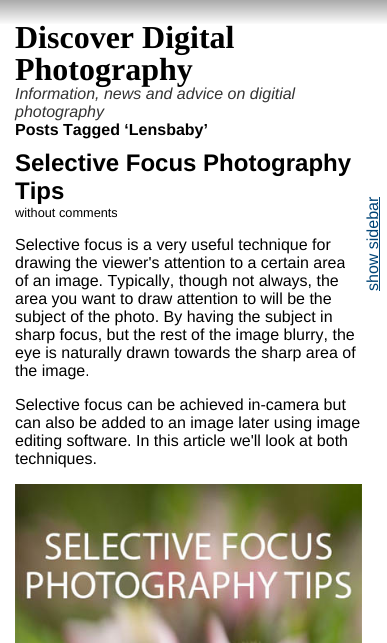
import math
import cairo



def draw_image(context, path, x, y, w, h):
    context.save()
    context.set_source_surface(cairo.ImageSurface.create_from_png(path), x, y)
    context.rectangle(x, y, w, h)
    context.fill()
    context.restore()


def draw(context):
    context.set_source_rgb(1, 1, 1)
    context.paint()
    gradient = cairo.LinearGradient(194, 0, 194, 25)
    gradient.add_color_stop_rgba(0, 170 / 255, 170 / 255, 170 / 255, 1)
    gradient.add_color_stop_rgba(1, 1, 1, 1, 1)
    context.set_source(gradient)
    context.rectangle(0, 0, 387, 24)
    context.fill()
    draw_image(context, "images/1.png", 15, 484, 347, 159)
    context.set_source_rgb(0, 68 / 255, 119 / 255)
    context.rectangle(379, 197, 1, 94)
    context.fill()
    context.select_font_face("Liberation Serif", cairo.FontSlant.NORMAL, cairo.FontWeight.BOLD)
    context.set_font_size(32)
    context.set_source_rgb(0, 0, 0)
    context.move_to(15, 48)
    context.show_text("Discover Digital")
    context.move_to(15, 80)
    context.show_text("Photography")
    context.select_font_face("Liberation Sans", cairo.FontSlant.ITALIC)
    context.set_font_size(16)
    context.set_source_rgb(51 / 255, 51 / 255, 51 / 255)
    context.move_to(15, 99)
    context.show_text("Information, news and advice on digitial")
    context.move_to(15, 117)
    context.show_text("photography")
    context.select_font_face("Liberation Sans", cairo.FontSlant.NORMAL, cairo.FontWeight.BOLD)
    context.set_source_rgb(0, 0, 0)
    context.move_to(15, 135)
    context.show_text("Posts Tagged ‘Lensbaby’")
    context.set_font_size(24)
    context.move_to(15, 171)
    context.show_text("Selective Focus Photography")
    context.move_to(15, 199)
    context.show_text("Tips")
    context.select_font_face("Liberation Sans")
    context.set_font_size(12.75)
    context.move_to(15, 217)
    context.show_text("without comments")
    context.set_font_size(16)
    context.move_to(15, 250)
    context.show_text("Selective focus is a very useful technique for")
    context.move_to(15, 268)
    context.show_text("drawing the viewer's attention to a certain area")
    context.move_to(15, 286)
    context.show_text("of an image. Typically, though not always, the")
    context.move_to(15, 304)
    context.show_text("area you want to draw attention to will be the")
    context.move_to(15, 322)
    context.show_text("subject of the photo. By having the subject in")
    context.move_to(15, 340)
    context.show_text("sharp focus, but the rest of the image blurry, the")
    context.move_to(15, 358)
    context.show_text("eye is naturally drawn towards the sharp area of")
    context.move_to(15, 376)
    context.show_text("the image.")
    context.move_to(15, 410)
    context.show_text("Selective focus can be achieved in-camera but")
    context.move_to(15, 428)
    context.show_text("can also be added to an image later using image")
    context.move_to(15, 446)
    context.show_text("editing software. In this article we'll look at both")
    context.move_to(15, 464)
    context.show_text("techniques.")
    context.set_source_rgb(0, 68 / 255, 119 / 255)
    context.save()
    context.translate(378, 291)
    context.rotate(-90 * math.pi / 180)
    context.move_to(0, 0)
    context.show_text("show sidebar")
    context.restore()


surface = cairo.ImageSurface(cairo.Format.RGB24, 387, 643)
context = cairo.Context(surface)
options = cairo.FontOptions()
options.set_hint_metrics(cairo.HintMetrics.OFF)
options.set_hint_style(cairo.HintStyle.NONE)
context.set_font_options(options)
context.set_miter_limit(4)
draw(context)
surface.write_to_png("out.png")
